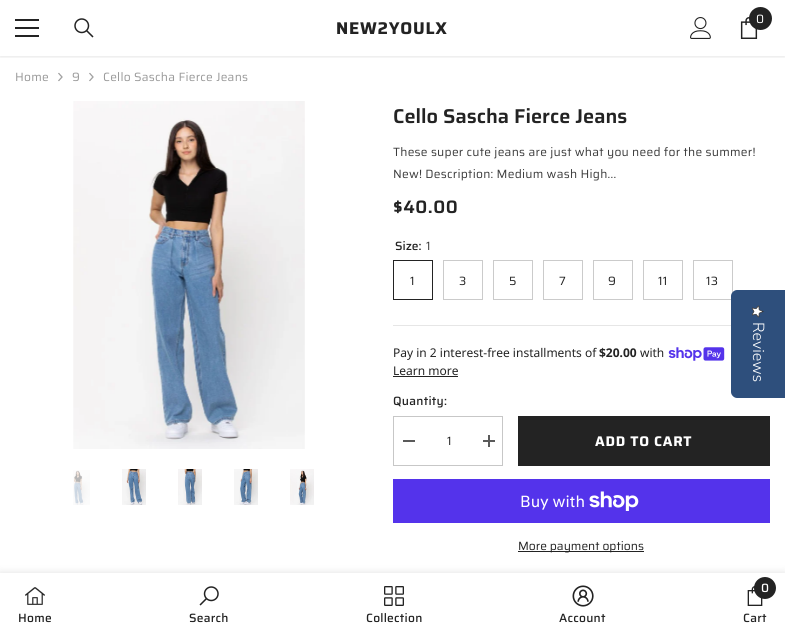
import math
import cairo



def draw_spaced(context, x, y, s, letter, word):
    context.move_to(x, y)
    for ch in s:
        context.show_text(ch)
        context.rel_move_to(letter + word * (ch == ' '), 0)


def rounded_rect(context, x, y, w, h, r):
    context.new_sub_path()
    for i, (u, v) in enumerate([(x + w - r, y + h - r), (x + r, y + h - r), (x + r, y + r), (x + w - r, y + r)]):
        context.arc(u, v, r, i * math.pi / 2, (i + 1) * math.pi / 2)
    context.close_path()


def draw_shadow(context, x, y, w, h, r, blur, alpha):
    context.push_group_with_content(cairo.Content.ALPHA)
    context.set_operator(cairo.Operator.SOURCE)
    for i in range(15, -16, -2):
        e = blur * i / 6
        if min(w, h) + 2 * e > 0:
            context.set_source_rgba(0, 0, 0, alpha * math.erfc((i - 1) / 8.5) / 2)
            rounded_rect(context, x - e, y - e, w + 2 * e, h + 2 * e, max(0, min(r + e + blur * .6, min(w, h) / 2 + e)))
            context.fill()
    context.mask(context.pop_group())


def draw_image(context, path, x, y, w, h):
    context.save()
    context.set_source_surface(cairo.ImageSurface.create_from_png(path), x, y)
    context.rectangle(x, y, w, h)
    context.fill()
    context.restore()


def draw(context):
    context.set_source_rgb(1, 1, 1)
    context.paint()
    context.save()
    context.rectangle(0, 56, 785, 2)
    context.clip()
    context.set_source_rgb(0, 0, 0)
    draw_shadow(context, 0, 1, 785, 56, 0, 1.5, 0.1)
    context.restore()
    context.set_source_rgb(35 / 255, 35 / 255, 35 / 255)
    context.rectangle(15, 27, 24, 2)
    context.fill()
    context.rectangle(15, 19, 24, 2)
    context.fill()
    context.rectangle(15, 35, 24, 2)
    context.fill()
    draw_image(context, "images/1.png", 74, 18, 20, 20)
    draw_image(context, "images/2.png", 690, 17, 21, 22)
    draw_image(context, "images/3.png", 740, 17, 18, 22)
    context.arc(760.5, 18.5, 11.5, 0, 2 * math.pi)
    context.fill()
    draw_image(context, "images/4.png", 58, 72, 5, 10)
    draw_image(context, "images/4.png", 89, 72, 5, 10)
    draw_image(context, "images/5.png", 73, 101, 232, 348)
    draw_image(context, "images/6.png", 73, 470, 17, 35)
    draw_image(context, "images/7.png", 122, 469, 24, 36)
    draw_image(context, "images/8.png", 178, 469, 24, 36)
    draw_image(context, "images/9.png", 234, 469, 24, 36)
    draw_image(context, "images/10.png", 290, 469, 24, 36)
    context.set_source_rgb(230 / 255, 230 / 255, 230 / 255)
    context.rectangle(393, 325, 338, 1)
    context.fill()
    context.rectangle(393.5, 260.5, 39, 39)
    context.set_source_rgb(35 / 255, 35 / 255, 35 / 255)
    context.set_line_width(1)
    context.stroke()
    context.rectangle(443.5, 260.5, 39, 39)
    context.set_source_rgb(203 / 255, 203 / 255, 203 / 255)
    context.stroke()
    context.rectangle(493.5, 260.5, 39, 39)
    context.stroke()
    context.rectangle(543.5, 260.5, 39, 39)
    context.stroke()
    context.rectangle(593.5, 260.5, 39, 39)
    context.stroke()
    context.rectangle(643.5, 260.5, 39, 39)
    context.stroke()
    context.rectangle(693.5, 260.5, 39, 39)
    context.stroke()
    draw_image(context, "images/11.png", 668, 347, 57, 14)
    context.set_source_rgb(35 / 255, 35 / 255, 35 / 255)
    context.rectangle(393, 376, 65, 1)
    context.fill()
    context.rectangle(393.5, 416.5, 109, 49)
    context.set_source_rgb(199 / 255, 199 / 255, 199 / 255)
    context.stroke()
    context.set_source_rgb(90 / 255, 90 / 255, 90 / 255)
    context.rectangle(403, 440, 12, 2)
    context.fill()
    context.rectangle(483, 440, 12, 2)
    context.fill()
    context.rectangle(488, 435, 2, 12)
    context.fill()
    context.set_source_rgb(35 / 255, 35 / 255, 35 / 255)
    context.rectangle(518, 416, 252, 50)
    context.fill()
    context.set_source_rgb(84 / 255, 51 / 255, 235 / 255)
    context.rectangle(393, 479, 377, 44)
    context.fill()
    draw_image(context, "images/12.png", 589, 491, 50, 20)
    context.set_source_rgb(35 / 255, 35 / 255, 35 / 255)
    context.rectangle(518, 551, 126, 1)
    context.fill()
    context.set_source_rgb(0, 0, 0)
    draw_shadow(context, 0, 573, 785, 62, 0, 4.5, 0.12)
    context.set_source_rgb(1, 1, 1)
    context.rectangle(0, 573, 785, 62)
    context.fill()
    draw_image(context, "images/13.png", 25, 587, 20, 18)
    draw_image(context, "images/14.png", 199, 586, 20, 20)
    draw_image(context, "images/15.png", 384, 586, 20, 20)
    draw_image(context, "images/16.png", 572, 585, 22, 22)
    draw_image(context, "images/17.png", 747, 586, 16, 20)
    context.set_source_rgb(35 / 255, 35 / 255, 35 / 255)
    context.arc(765, 588, 11, 0, 2 * math.pi)
    context.fill()
    context.set_source_rgb(46 / 255, 79 / 255, 124 / 255)
    context.new_path()
    context.move_to(785, 290)
    context.line_to(785, 398)
    context.line_to(737, 398)
    context.curve_to(734, 398, 731, 395, 731, 392)
    context.line_to(731, 296)
    context.curve_to(731, 293, 734, 290, 737, 290)
    context.close_path()
    context.fill()
    draw_image(context, "images/18.png", 752, 305, 12, 13)
    context.select_font_face("Saira", cairo.FontSlant.NORMAL, cairo.FontWeight.BOLD)
    context.set_font_size(17)
    context.set_source_rgb(35 / 255, 35 / 255, 35 / 255)
    draw_spaced(context, 336, 34, "NEW2YOULX", 0.75, 0)
    context.select_font_face("Saira")
    context.set_font_size(12)
    context.set_source_rgb(1, 1, 1)
    context.move_to(756, 23)
    context.show_text("0")
    context.set_source_rgb(153 / 255, 153 / 255, 153 / 255)
    draw_spaced(context, 15, 81, "Home", 0.25, 0)
    draw_spaced(context, 72, 81, "9", 0.25, 0)
    draw_spaced(context, 103, 81, "Cello Sascha Fierce Jeans", 0.25, 0)
    context.select_font_face("Saira SemiBold")
    context.set_font_size(20)
    context.set_source_rgb(35 / 255, 35 / 255, 35 / 255)
    context.move_to(393, 123)
    context.show_text("Cello Sascha Fierce Jeans")
    context.select_font_face("Saira")
    context.set_font_size(12)
    context.set_source_rgb(60 / 255, 60 / 255, 60 / 255)
    draw_spaced(context, 393, 156, "These super cute jeans are just what you need for the summer!", 0.25, 0)
    draw_spaced(context, 393, 178, "New! Description: Medium wash High...", 0.25, 0)
    context.select_font_face("Saira SemiBold")
    context.set_font_size(18)
    context.set_source_rgb(35 / 255, 35 / 255, 35 / 255)
    draw_spaced(context, 393, 213, "$40.00", 0.5, 0)
    context.select_font_face("Saira Medium")
    context.set_font_size(12)
    context.move_to(395, 250)
    context.show_text("Size:")
    context.select_font_face("Saira")
    context.set_source_rgb(60 / 255, 60 / 255, 60 / 255)
    context.move_to(426, 250)
    context.show_text("1")
    context.set_source_rgb(35 / 255, 35 / 255, 35 / 255)
    draw_spaced(context, 410, 285, "1", 0.25, 0)
    draw_spaced(context, 459, 285, "3", 0.25, 0)
    draw_spaced(context, 509, 285, "5", 0.25, 0)
    draw_spaced(context, 559, 285, "7", 0.25, 0)
    draw_spaced(context, 608, 285, "9", 0.25, 0)
    draw_spaced(context, 658, 285, "11", 0.25, 0)
    draw_spaced(context, 706, 285, "13", 0.25, 0)
    context.select_font_face("Noto Sans")
    context.move_to(393, 357)
    context.show_text("Pay in 2 interest-free installments of")
    context.select_font_face("Noto Sans", cairo.FontSlant.NORMAL, cairo.FontWeight.BOLD)
    context.move_to(599, 357)
    context.show_text("$20.00")
    context.select_font_face("Noto Sans")
    context.move_to(640, 357)
    context.show_text("with")
    context.move_to(393, 375)
    context.show_text("Learn more")
    context.select_font_face("Saira Medium")
    draw_spaced(context, 393, 405, "Quantity:", 0.25, 0)
    context.select_font_face("Saira")
    draw_spaced(context, 447, 445, "1", 0.25, 0)
    context.select_font_face("Saira", cairo.FontSlant.NORMAL, cairo.FontWeight.BOLD)
    context.set_font_size(14)
    context.set_source_rgb(1, 1, 1)
    draw_spaced(context, 595, 446, "ADD TO CART", 0.75, 0)
    context.select_font_face("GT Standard")
    context.set_font_size(16)
    context.move_to(520, 507)
    context.show_text("Buy with")
    context.select_font_face("Saira")
    context.set_font_size(12)
    context.set_source_rgb(35 / 255, 35 / 255, 35 / 255)
    context.move_to(518, 550)
    context.show_text("More payment options")
    context.select_font_face("Saira Medium")
    draw_spaced(context, 18, 622, "Home", 0.25, 0)
    draw_spaced(context, 189, 622, "Search", 0.25, 0)
    draw_spaced(context, 366, 622, "Collection", 0.25, 0)
    draw_spaced(context, 559, 622, "Account", 0.25, 0)
    context.set_source_rgb(1, 1, 1)
    context.move_to(761, 592)
    context.show_text("0")
    context.set_source_rgb(35 / 255, 35 / 255, 35 / 255)
    draw_spaced(context, 743, 622, "Cart", 0.25, 0)
    context.select_font_face("Nunito Sans Light")
    context.set_font_size(16)
    context.set_source_rgb(1, 1, 1)
    context.save()
    context.translate(753, 322)
    context.rotate(90 * math.pi / 180)
    context.move_to(0, 0)
    context.show_text("Reviews")
    context.restore()


surface = cairo.ImageSurface(cairo.Format.RGB24, 785, 635)
context = cairo.Context(surface)
options = cairo.FontOptions()
options.set_hint_metrics(cairo.HintMetrics.OFF)
options.set_hint_style(cairo.HintStyle.NONE)
context.set_font_options(options)
context.set_miter_limit(4)
draw(context)
surface.write_to_png("out.png")
